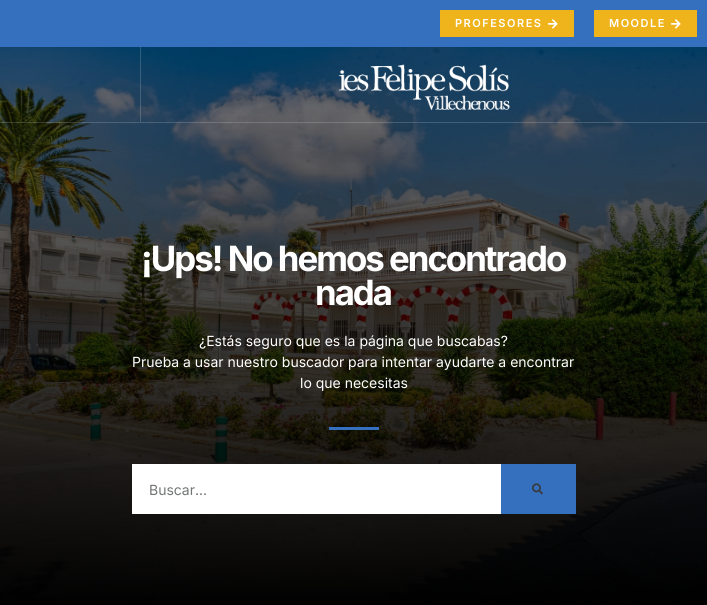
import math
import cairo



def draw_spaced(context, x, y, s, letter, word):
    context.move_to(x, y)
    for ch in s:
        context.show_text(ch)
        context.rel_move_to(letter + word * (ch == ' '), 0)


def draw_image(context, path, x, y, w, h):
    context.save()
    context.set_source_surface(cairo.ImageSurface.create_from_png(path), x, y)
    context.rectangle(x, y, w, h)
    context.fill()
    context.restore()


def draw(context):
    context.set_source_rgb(1, 1, 1)
    context.paint()
    context.set_source_rgb(53 / 255, 112 / 255, 191 / 255)
    context.rectangle(0, 0, 707, 47)
    context.fill()
    context.set_source_rgb(239 / 255, 179 / 255, 27 / 255)
    context.rectangle(440, 10, 134, 27)
    context.fill()
    draw_image(context, "images/1.png", 548, 19, 10, 10)
    context.rectangle(594, 10, 103, 27)
    context.fill()
    draw_image(context, "images/1.png", 671, 19, 10, 10)
    draw_image(context, "images/3.png", 0, 47, 707, 558)
    context.set_source_rgba(1, 1, 1, 0.17)
    context.rectangle(0, 122, 707, 1)
    context.fill()
    context.rectangle(140, 47, 1, 75)
    context.fill()
    draw_image(context, "images/2.png", 338, 64, 172, 46)
    context.set_source_rgb(53 / 255, 112 / 255, 191 / 255)
    context.rectangle(329, 427, 50, 3)
    context.fill()
    context.set_source_rgb(1, 1, 1)
    context.rectangle(132, 464, 369, 50)
    context.fill()
    context.set_source_rgb(53 / 255, 112 / 255, 191 / 255)
    context.rectangle(501, 464, 75, 50)
    context.fill()
    draw_image(context, "images/4.png", 532, 483, 11, 12)
    context.select_font_face("Inter SemiBold")
    context.set_font_size(11)
    context.set_source_rgb(1, 1, 1)
    draw_spaced(context, 455, 27, "PROFESORES", 1.5, 0)
    draw_spaced(context, 609, 27, "MOODLE", 1.5, 0)
    context.select_font_face("Inter", cairo.FontSlant.NORMAL, cairo.FontWeight.BOLD)
    context.set_font_size(34.8)
    draw_spaced(context, 141, 271, "¡Ups! No hemos encontrado", -2, 0)
    draw_spaced(context, 315, 305, "nada", -2, 0)
    context.select_font_face("Inter")
    context.set_font_size(14)
    context.move_to(199, 346)
    context.show_text("¿Estás seguro que es la página que buscabas?")
    context.move_to(132, 367)
    context.show_text("Prueba a usar nuestro buscador para intentar ayudarte a encontrar")
    context.move_to(300, 388)
    context.show_text("lo que necesitas")
    context.set_source_rgb(116 / 255, 118 / 255, 118 / 255)
    context.move_to(149, 495)
    context.show_text("Buscar...")


surface = cairo.ImageSurface(cairo.Format.RGB24, 707, 605)
context = cairo.Context(surface)
options = cairo.FontOptions()
options.set_hint_metrics(cairo.HintMetrics.OFF)
options.set_hint_style(cairo.HintStyle.NONE)
context.set_font_options(options)
context.set_miter_limit(4)
draw(context)
surface.write_to_png("out.png")
